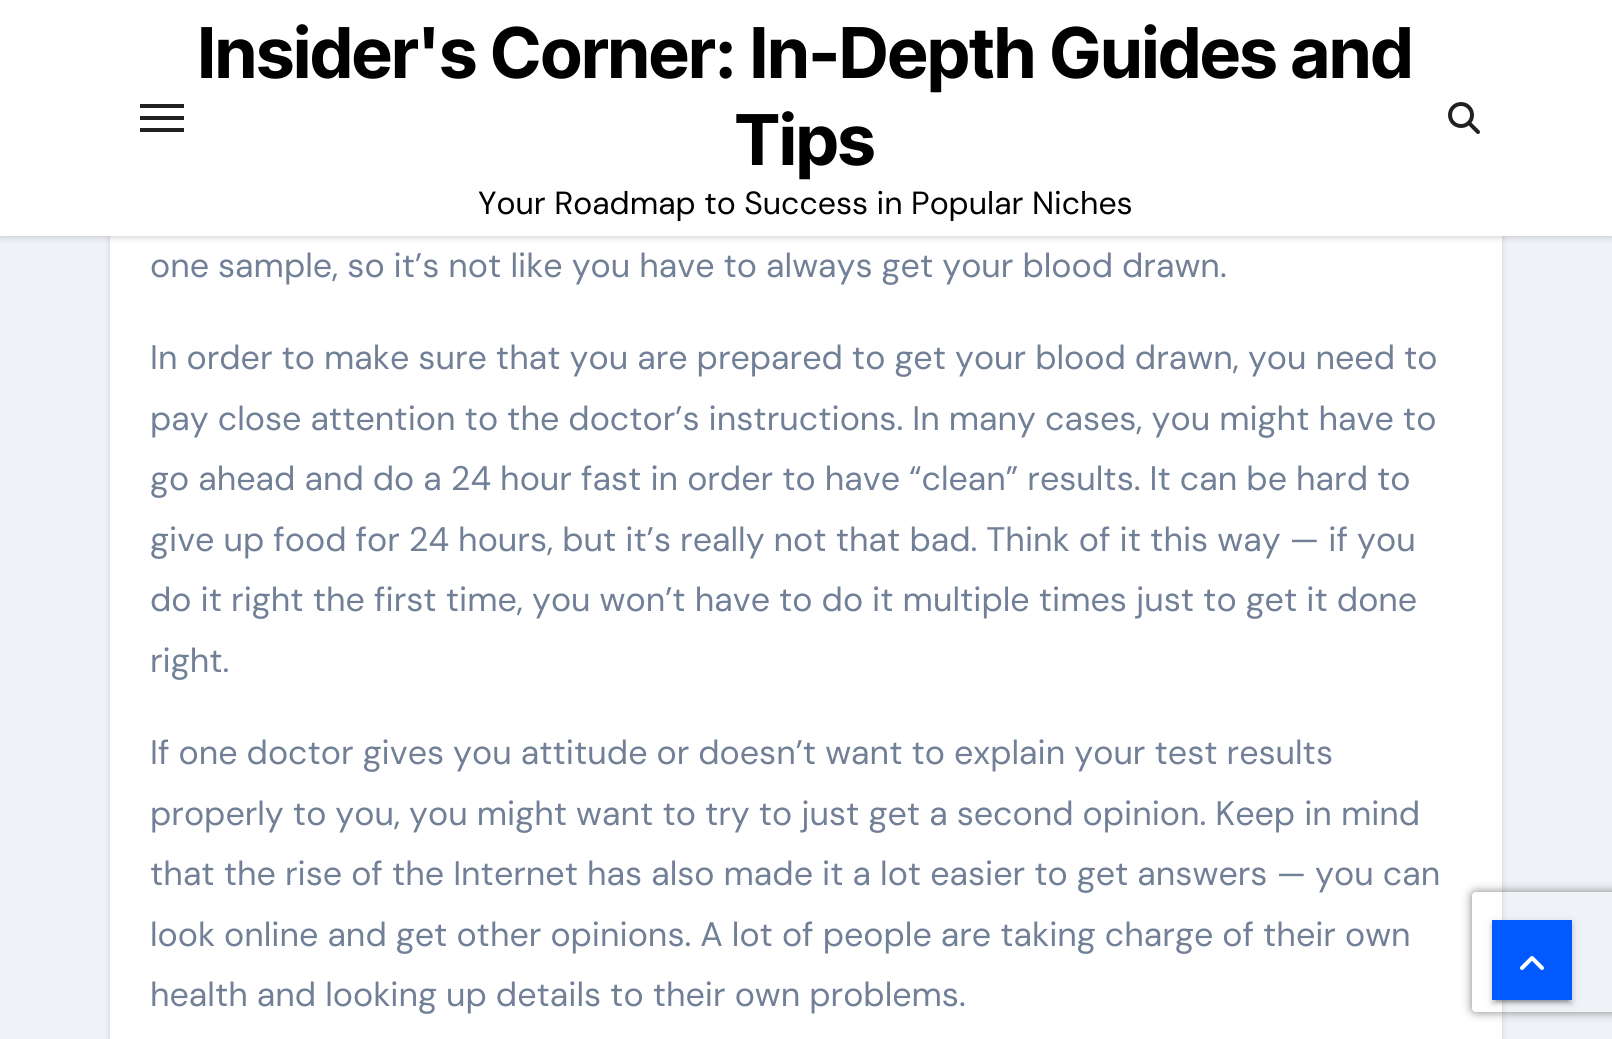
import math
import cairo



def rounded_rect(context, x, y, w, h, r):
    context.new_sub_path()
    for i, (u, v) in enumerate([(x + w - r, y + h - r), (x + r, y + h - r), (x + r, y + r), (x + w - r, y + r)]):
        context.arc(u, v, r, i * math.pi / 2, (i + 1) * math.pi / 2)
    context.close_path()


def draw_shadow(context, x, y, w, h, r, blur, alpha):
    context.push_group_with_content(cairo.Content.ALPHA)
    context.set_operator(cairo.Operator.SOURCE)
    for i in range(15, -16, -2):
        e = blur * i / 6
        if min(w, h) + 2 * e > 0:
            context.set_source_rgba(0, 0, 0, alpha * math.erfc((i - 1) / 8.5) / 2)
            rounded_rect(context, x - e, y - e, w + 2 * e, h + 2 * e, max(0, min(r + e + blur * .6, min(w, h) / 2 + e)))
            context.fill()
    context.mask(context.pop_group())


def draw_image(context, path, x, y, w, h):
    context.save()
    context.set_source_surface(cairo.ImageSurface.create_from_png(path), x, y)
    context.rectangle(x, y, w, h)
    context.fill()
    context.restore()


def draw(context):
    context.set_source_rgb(239 / 255, 242 / 255, 247 / 255)
    context.paint()
    context.set_source_rgb(0, 0, 0)
    draw_shadow(context, 110, -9, 1392, 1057, 0, 3, 0.15)
    context.set_source_rgb(1, 1, 1)
    context.rectangle(110, 236, 1392, 803)
    context.fill()
    context.set_source_rgb(0, 0, 0)
    draw_shadow(context, 0, 2, 1612, 236, 0, 3, 0.15)
    context.set_source_rgb(1, 1, 1)
    context.rectangle(0, 0, 1612, 236)
    context.fill()
    context.set_source_rgb(33 / 255, 33 / 255, 33 / 255)
    context.rectangle(140, 104, 44, 4)
    context.fill()
    context.rectangle(140, 116, 44, 4)
    context.fill()
    context.rectangle(140, 128, 44, 4)
    context.fill()
    draw_image(context, "images/1.png", 1448, 102, 32, 32)
    context.set_source_rgb(0, 0, 0)
    draw_shadow(context, 1492, 922, 80, 80, 0, 5, 0.12)
    draw_shadow(context, 1496, 930, 72, 72, 0, 1, 0.2)
    draw_shadow(context, 1492, 924, 80, 80, 0, 2, 0.14)
    context.save()
    context.set_fill_rule(cairo.FillRule.EVEN_ODD)
    context.new_path()
    context.move_to(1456, 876)
    context.line_to(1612, 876)
    context.line_to(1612, 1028)
    context.line_to(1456, 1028)
    context.close_path()
    context.move_to(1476, 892)
    context.line_to(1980, 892)
    context.curve_to(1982, 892, 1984, 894, 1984, 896)
    context.line_to(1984, 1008)
    context.curve_to(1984, 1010, 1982, 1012, 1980, 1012)
    context.line_to(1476, 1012)
    context.curve_to(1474, 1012, 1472, 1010, 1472, 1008)
    context.line_to(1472, 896)
    context.curve_to(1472, 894, 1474, 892, 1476, 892)
    context.close_path()
    context.clip()
    context.set_source_rgb(128 / 255, 128 / 255, 128 / 255)
    draw_shadow(context, 1472, 892, 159, 120, 4, 5, 1)
    context.restore()
    context.set_source_rgb(0, 90 / 255, 1)
    context.rectangle(1492, 920, 80, 80)
    context.fill()
    draw_image(context, "images/2.png", 1520, 956, 24, 14)
    context.select_font_face("Inter Tight", cairo.FontSlant.NORMAL, cairo.FontWeight.BOLD)
    context.set_font_size(70)
    context.set_source_rgb(0, 0, 0)
    context.move_to(198, 78)
    context.show_text("Insider's Corner: In-Depth Guides and")
    context.move_to(735, 165)
    context.show_text("Tips")
    context.select_font_face("DM Sans")
    context.set_font_size(32)
    context.move_to(478, 214)
    context.show_text("Your Roadmap to Success in Popular Niches")
    context.set_font_size(34)
    context.set_source_rgb(113 / 255, 128 / 255, 150 / 255)
    context.move_to(150, 277)
    context.show_text("one sample, so it’s not like you have to always get your blood drawn.")
    context.move_to(150, 369)
    context.show_text("In order to make sure that you are prepared to get your blood drawn, you need to")
    context.move_to(150, 430)
    context.show_text("pay close attention to the doctor’s instructions. In many cases, you might have to")
    context.move_to(150, 490)
    context.show_text("go ahead and do a 24 hour fast in order to have “clean” results. It can be hard to")
    context.move_to(150, 551)
    context.show_text("give up food for 24 hours, but it’s really not that bad. Think of it this way — if you")
    context.move_to(150, 611)
    context.show_text("do it right the first time, you won’t have to do it multiple times just to get it done")
    context.move_to(150, 672)
    context.show_text("right.")
    context.move_to(150, 764)
    context.show_text("If one doctor gives you attitude or doesn’t want to explain your test results")
    context.move_to(150, 825)
    context.show_text("properly to you, you might want to try to just get a second opinion. Keep in mind")
    context.move_to(150, 885)
    context.show_text("that the rise of the Internet has also made it a lot easier to get answers — you can")
    context.move_to(150, 946)
    context.show_text("look online and get other opinions. A lot of people are taking charge of their own")
    context.move_to(150, 1006)
    context.show_text("health and looking up details to their own problems.")


surface = cairo.ImageSurface(cairo.Format.RGB24, 1612, 1039)
context = cairo.Context(surface)
options = cairo.FontOptions()
options.set_hint_metrics(cairo.HintMetrics.OFF)
options.set_hint_style(cairo.HintStyle.NONE)
context.set_font_options(options)
context.set_miter_limit(4)
draw(context)
surface.write_to_png("out.png")
